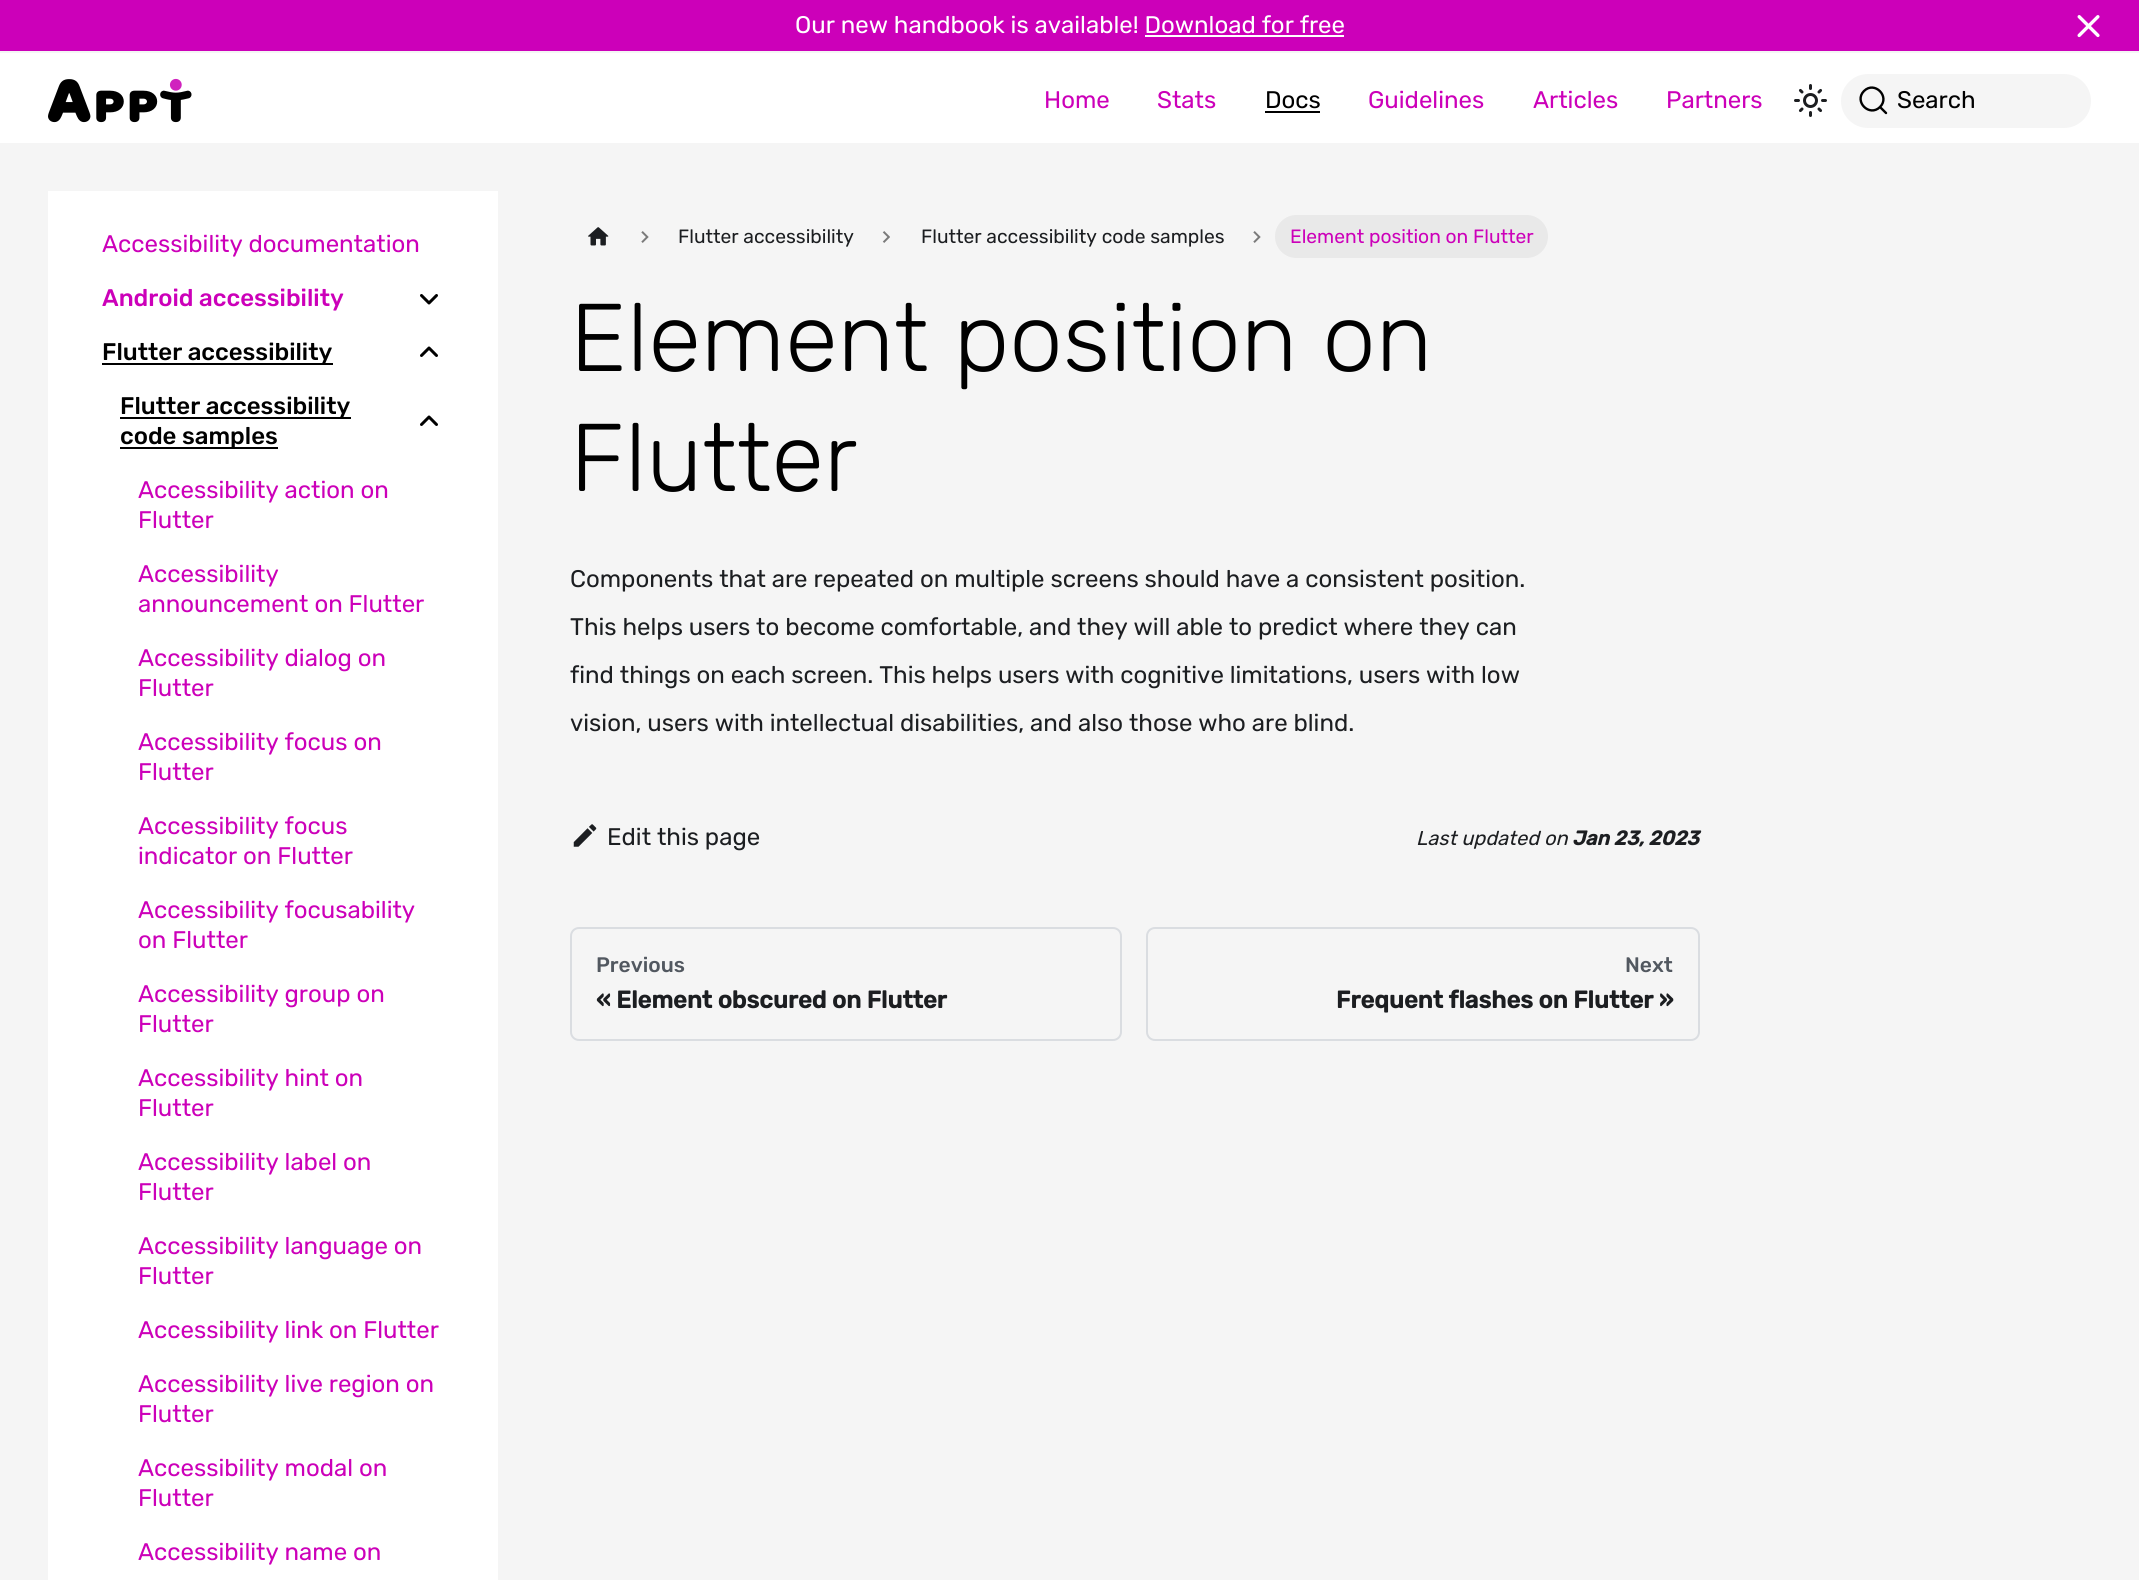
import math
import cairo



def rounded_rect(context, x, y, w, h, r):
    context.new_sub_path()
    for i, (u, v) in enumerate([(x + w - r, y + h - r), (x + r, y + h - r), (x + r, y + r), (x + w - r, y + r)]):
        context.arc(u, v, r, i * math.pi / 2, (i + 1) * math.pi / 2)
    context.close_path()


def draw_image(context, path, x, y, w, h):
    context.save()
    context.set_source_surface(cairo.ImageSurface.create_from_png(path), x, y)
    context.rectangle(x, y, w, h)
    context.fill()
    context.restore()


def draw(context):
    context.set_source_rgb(245 / 255, 245 / 255, 245 / 255)
    context.paint()
    context.set_source_rgb(204 / 255, 0, 185 / 255)
    context.rectangle(0, 0, 2139, 51)
    context.fill()
    context.set_source_rgb(1, 1, 1)
    context.rectangle(1145, 35, 199, 2)
    context.fill()
    draw_image(context, "images/1.png", 2077, 15, 23, 23)
    context.rectangle(0, 53, 2139, 90)
    context.fill()
    draw_image(context, "images/2.png", 48, 78, 144, 45)
    context.set_source_rgb(0, 0, 0)
    context.rectangle(1265, 111, 55, 2)
    context.fill()
    draw_image(context, "images/3.png", 1794, 84, 33, 33)
    context.set_source_rgb(245 / 255, 245 / 255, 245 / 255)
    rounded_rect(context, 1841, 74, 250, 54, 27)
    context.fill()
    context.new_path()
    context.move_to(1880, 107)
    context.line_to(1886, 113)
    context.line_to(1880, 107)
    context.curve_to(1869.5, 117.5, 1853.5, 101.5, 1864, 91)
    context.curve_to(1874.5, 80.5, 1890.5, 96.5, 1880, 107)
    context.close_path()
    context.set_source_rgb(0, 0, 0)
    context.set_line_width(2.4)
    context.set_line_cap(cairo.LineCap.ROUND)
    context.set_line_join(cairo.LineJoin.ROUND)
    context.stroke()
    context.set_source_rgb(1, 1, 1)
    context.rectangle(48, 191, 450, 1389)
    context.fill()
    draw_image(context, "images/4.png", 420, 294, 18, 11)
    context.set_source_rgb(0, 0, 0)
    context.rectangle(102, 363, 231, 2)
    context.fill()
    draw_image(context, "images/5.png", 420, 346, 18, 11)
    context.rectangle(120, 417, 231, 2)
    context.fill()
    context.rectangle(120, 447, 158, 2)
    context.fill()
    draw_image(context, "images/5.png", 420, 415, 18, 11)
    draw_image(context, "images/6.png", 588, 227, 21, 19)
    draw_image(context, "images/7.png", 641, 231, 8, 12)
    draw_image(context, "images/8.png", 882, 231, 8, 12)
    draw_image(context, "images/7.png", 1253, 231, 8, 12)
    context.set_source_rgb(233 / 255, 233 / 255, 233 / 255)
    rounded_rect(context, 1275, 215, 273, 43, 21.5)
    context.fill()
    draw_image(context, "images/9.png", 573, 824, 24, 23)
    rounded_rect(context, 571, 928, 550, 112, 8)
    context.set_source_rgb(218 / 255, 221 / 255, 225 / 255)
    context.set_line_width(2)
    context.set_line_cap(cairo.LineCap.BUTT)
    context.set_line_join(cairo.LineJoin.MITER)
    context.stroke()
    rounded_rect(context, 1147, 928, 552, 112, 8)
    context.stroke()
    context.select_font_face("Rubik")
    context.set_font_size(24)
    context.set_source_rgb(1, 1, 1)
    context.move_to(795, 33)
    context.show_text("Our new handbook is available! Download for free")
    context.set_source_rgb(204 / 255, 0, 185 / 255)
    context.move_to(1044, 108)
    context.show_text("Home")
    context.move_to(1157, 108)
    context.show_text("Stats")
    context.set_source_rgb(0, 0, 0)
    context.move_to(1265, 108)
    context.show_text("Docs")
    context.set_source_rgb(204 / 255, 0, 185 / 255)
    context.move_to(1368, 108)
    context.show_text("Guidelines")
    context.move_to(1533, 108)
    context.show_text("Articles")
    context.move_to(1666, 108)
    context.show_text("Partners")
    context.set_source_rgb(0, 0, 0)
    context.move_to(1897, 108)
    context.show_text("Search")
    context.set_source_rgb(204 / 255, 0, 185 / 255)
    context.move_to(102, 252)
    context.show_text("Accessibility documentation")
    context.select_font_face("Rubik Medium")
    context.move_to(102, 306)
    context.show_text("Android accessibility")
    context.set_source_rgb(0, 0, 0)
    context.move_to(102, 360)
    context.show_text("Flutter accessibility")
    context.move_to(120, 414)
    context.show_text("Flutter accessibility")
    context.move_to(120, 444)
    context.show_text("code samples")
    context.select_font_face("Rubik")
    context.set_source_rgb(204 / 255, 0, 185 / 255)
    context.move_to(138, 498)
    context.show_text("Accessibility action on")
    context.move_to(138, 528)
    context.show_text("Flutter")
    context.move_to(138, 582)
    context.show_text("Accessibility")
    context.move_to(138, 612)
    context.show_text("announcement on Flutter")
    context.move_to(138, 666)
    context.show_text("Accessibility dialog on")
    context.move_to(138, 696)
    context.show_text("Flutter")
    context.move_to(138, 750)
    context.show_text("Accessibility focus on")
    context.move_to(138, 780)
    context.show_text("Flutter")
    context.move_to(138, 834)
    context.show_text("Accessibility focus")
    context.move_to(138, 864)
    context.show_text("indicator on Flutter")
    context.move_to(138, 918)
    context.show_text("Accessibility focusability")
    context.move_to(138, 948)
    context.show_text("on Flutter")
    context.move_to(138, 1002)
    context.show_text("Accessibility group on")
    context.move_to(138, 1032)
    context.show_text("Flutter")
    context.move_to(138, 1086)
    context.show_text("Accessibility hint on")
    context.move_to(138, 1116)
    context.show_text("Flutter")
    context.move_to(138, 1170)
    context.show_text("Accessibility label on")
    context.move_to(138, 1200)
    context.show_text("Flutter")
    context.move_to(138, 1254)
    context.show_text("Accessibility language on")
    context.move_to(138, 1284)
    context.show_text("Flutter")
    context.move_to(138, 1338)
    context.show_text("Accessibility link on Flutter")
    context.move_to(138, 1392)
    context.show_text("Accessibility live region on")
    context.move_to(138, 1422)
    context.show_text("Flutter")
    context.move_to(138, 1476)
    context.show_text("Accessibility modal on")
    context.move_to(138, 1506)
    context.show_text("Flutter")
    context.move_to(138, 1560)
    context.show_text("Accessibility name on")
    context.set_font_size(19.25)
    context.set_source_rgb(28 / 255, 30 / 255, 33 / 255)
    context.move_to(678, 243)
    context.show_text("Flutter accessibility")
    context.move_to(921, 243)
    context.show_text("Flutter accessibility code samples")
    context.set_source_rgb(204 / 255, 0, 185 / 255)
    context.move_to(1290, 243)
    context.show_text("Element position on Flutter")
    context.select_font_face("Rubik Light")
    context.set_font_size(96)
    context.set_source_rgb(0, 0, 0)
    context.move_to(570, 371)
    context.show_text("Element position on")
    context.move_to(570, 491)
    context.show_text("Flutter")
    context.select_font_face("Rubik")
    context.set_font_size(24)
    context.set_source_rgb(28 / 255, 30 / 255, 33 / 255)
    context.move_to(570, 587)
    context.show_text("Components that are repeated on multiple screens should have a consistent position.")
    context.move_to(570, 635)
    context.show_text("This helps users to become comfortable, and they will able to predict where they can")
    context.move_to(570, 683)
    context.show_text("find things on each screen. This helps users with cognitive limitations, users with low")
    context.move_to(570, 731)
    context.show_text("vision, users with intellectual disabilities, and also those who are blind.")
    context.move_to(607, 845)
    context.show_text("Edit this page")
    context.select_font_face("Rubik", cairo.FontSlant.ITALIC)
    context.set_font_size(20)
    context.move_to(1416, 845)
    context.show_text("Last updated on")
    context.select_font_face("Rubik", cairo.FontSlant.ITALIC, cairo.FontWeight.BOLD)
    context.move_to(1572, 845)
    context.show_text("Jan 23, 2023")
    context.select_font_face("Rubik Medium")
    context.set_font_size(21)
    context.set_source_rgb(82 / 255, 88 / 255, 96 / 255)
    context.move_to(596, 972)
    context.show_text("Previous")
    context.select_font_face("Rubik", cairo.FontSlant.NORMAL, cairo.FontWeight.BOLD)
    context.set_font_size(24)
    context.set_source_rgb(28 / 255, 30 / 255, 33 / 255)
    context.move_to(596, 1008)
    context.show_text("« Element obscured on Flutter")
    context.select_font_face("Rubik Medium")
    context.set_font_size(21)
    context.set_source_rgb(82 / 255, 88 / 255, 96 / 255)
    context.move_to(1625, 972)
    context.show_text("Next")
    context.select_font_face("Rubik", cairo.FontSlant.NORMAL, cairo.FontWeight.BOLD)
    context.set_font_size(24)
    context.set_source_rgb(28 / 255, 30 / 255, 33 / 255)
    context.move_to(1336, 1008)
    context.show_text("Frequent flashes on Flutter »")


surface = cairo.ImageSurface(cairo.Format.RGB24, 2139, 1580)
context = cairo.Context(surface)
options = cairo.FontOptions()
options.set_hint_metrics(cairo.HintMetrics.OFF)
options.set_hint_style(cairo.HintStyle.NONE)
context.set_font_options(options)
context.set_miter_limit(4)
draw(context)
surface.write_to_png("out.png")
